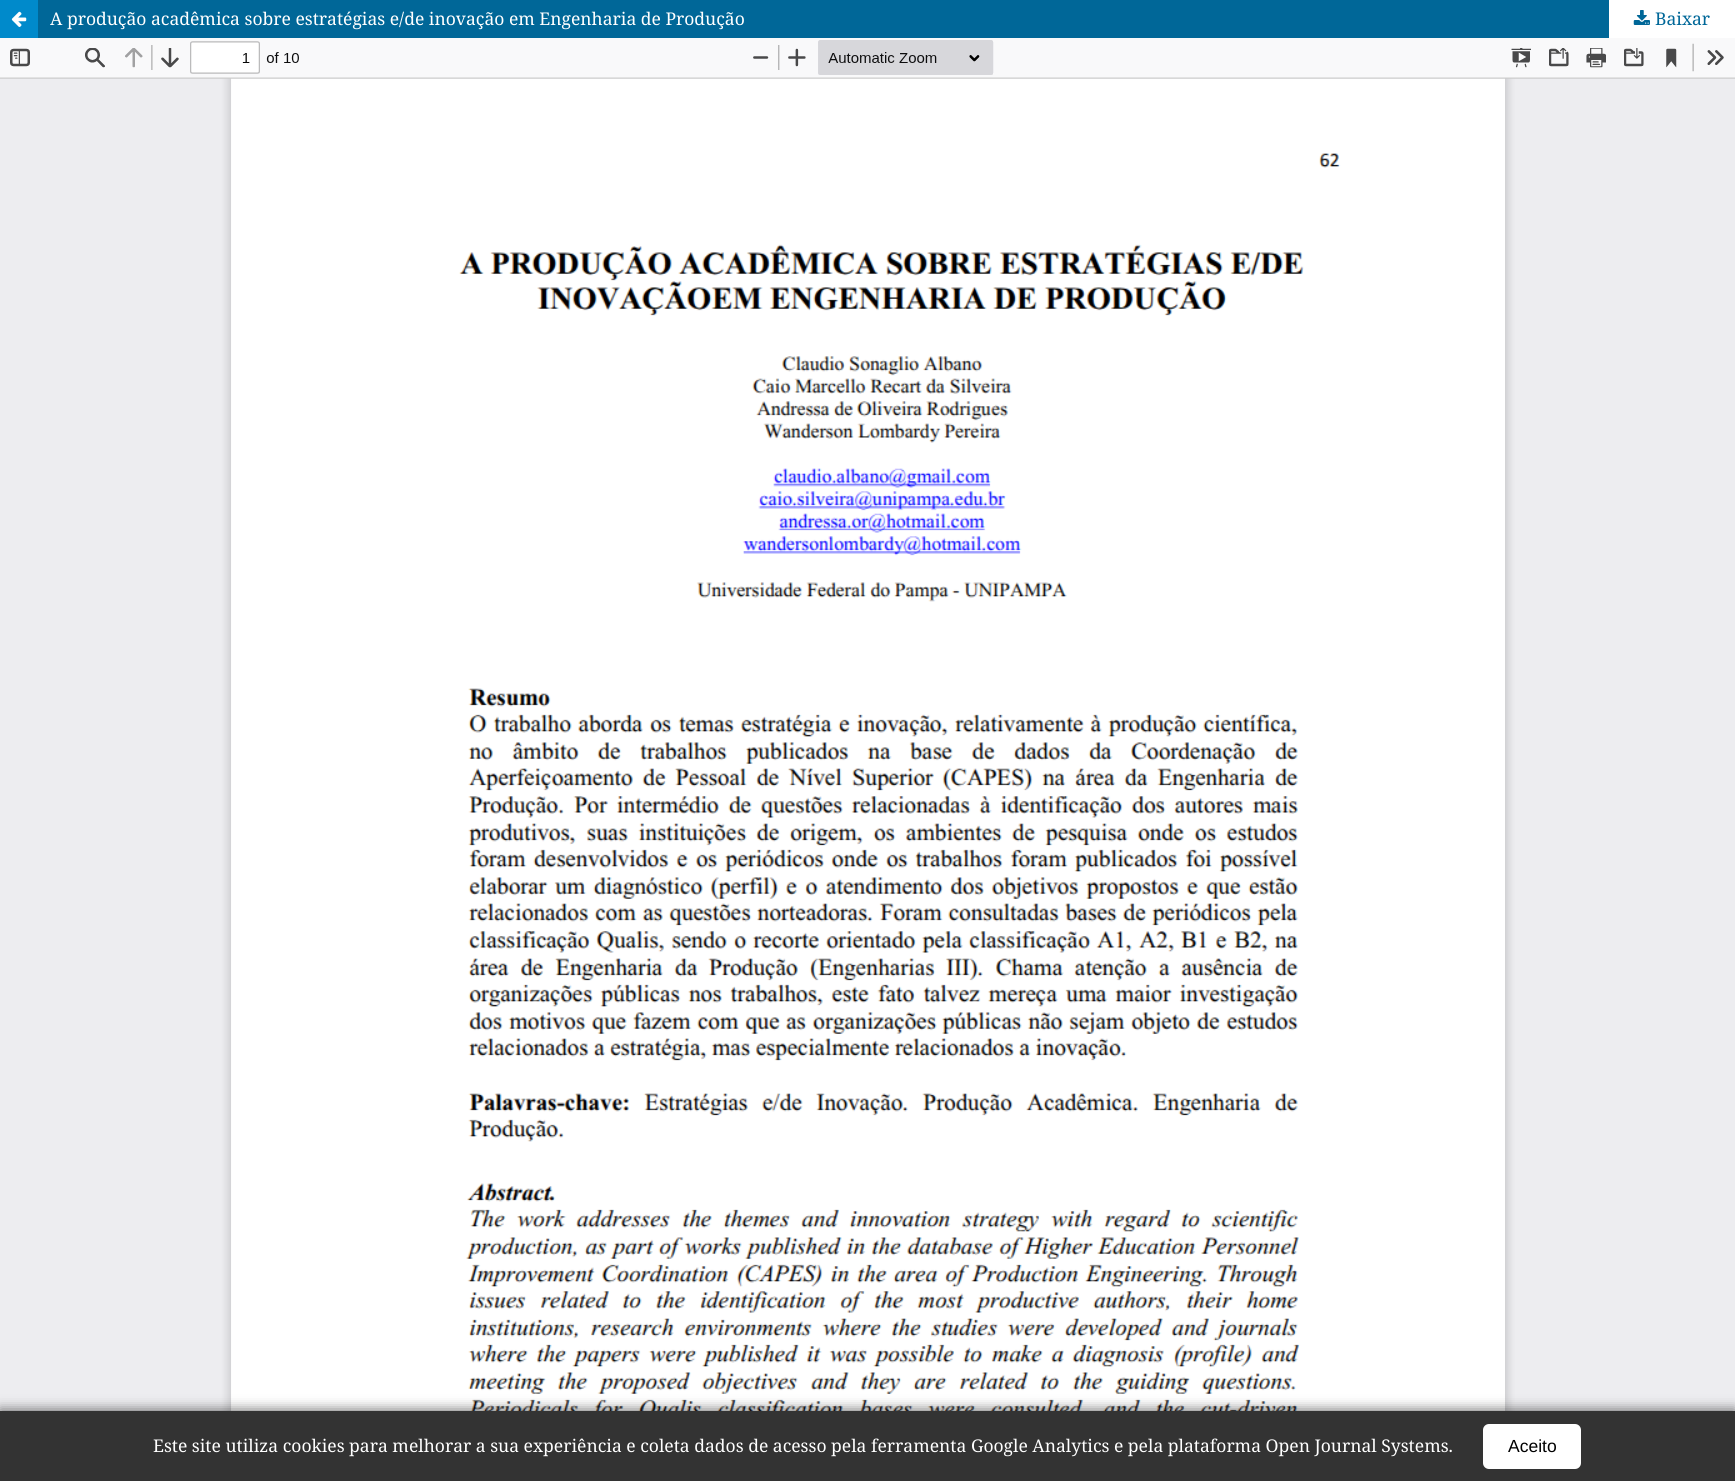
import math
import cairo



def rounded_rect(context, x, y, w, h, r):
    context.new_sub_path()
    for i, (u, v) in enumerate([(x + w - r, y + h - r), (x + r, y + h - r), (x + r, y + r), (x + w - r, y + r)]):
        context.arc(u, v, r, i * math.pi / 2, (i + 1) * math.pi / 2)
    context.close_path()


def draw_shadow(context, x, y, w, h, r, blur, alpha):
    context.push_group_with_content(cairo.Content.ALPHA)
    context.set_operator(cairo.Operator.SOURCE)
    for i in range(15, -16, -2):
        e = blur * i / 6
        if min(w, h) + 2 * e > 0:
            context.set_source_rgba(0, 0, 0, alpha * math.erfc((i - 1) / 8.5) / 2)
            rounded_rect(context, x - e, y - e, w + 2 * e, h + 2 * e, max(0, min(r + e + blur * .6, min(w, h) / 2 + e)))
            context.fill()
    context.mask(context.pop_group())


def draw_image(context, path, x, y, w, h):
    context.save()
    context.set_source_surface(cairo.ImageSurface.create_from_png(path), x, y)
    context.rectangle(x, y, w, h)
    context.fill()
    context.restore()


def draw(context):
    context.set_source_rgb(1, 1, 1)
    context.paint()
    context.set_source_rgb(0, 103 / 255, 152 / 255)
    context.rectangle(38, 0, 1571, 38)
    context.fill()
    context.set_source_rgb(0, 138 / 255, 203 / 255)
    context.rectangle(0, 0, 38, 38)
    context.fill()
    draw_image(context, "images/1.png", 11, 11, 16, 16)
    draw_image(context, "images/2.png", 1633, 10, 17, 15)
    draw_image(context, "images/3.png", 0, 38, 1735, 1373)
    context.set_source_rgb(0, 0, 0)
    draw_shadow(context, 0, 1409, 1735, 70, 0, 6, 0.5)
    context.set_source_rgb(51 / 255, 51 / 255, 51 / 255)
    context.rectangle(0, 1411, 1735, 70)
    context.fill()
    context.set_source_rgb(1, 1, 1)
    rounded_rect(context, 1483, 1424, 98, 45, 6)
    context.fill()
    context.select_font_face("Noto Serif")
    context.set_font_size(17.5)
    context.move_to(50, 25)
    context.show_text("A produção acadêmica sobre estratégias e/de inovação em Engenharia de Produção")
    context.set_source_rgb(0, 103 / 255, 152 / 255)
    context.move_to(1655, 25)
    context.show_text("Baixar")
    context.set_source_rgb(1, 1, 1)
    context.move_to(153, 1452)
    context.show_text("Este site utiliza cookies para melhorar a sua experiência e coleta dados de acesso pela ferramenta Google Analytics e pela plataforma Open Journal Systems.")
    context.select_font_face("Liberation Sans")
    context.set_source_rgb(0, 0, 0)
    context.move_to(1508, 1452)
    context.show_text("Aceito")


surface = cairo.ImageSurface(cairo.Format.RGB24, 1735, 1481)
context = cairo.Context(surface)
options = cairo.FontOptions()
options.set_hint_metrics(cairo.HintMetrics.OFF)
options.set_hint_style(cairo.HintStyle.NONE)
context.set_font_options(options)
context.set_miter_limit(4)
draw(context)
surface.write_to_png("out.png")
